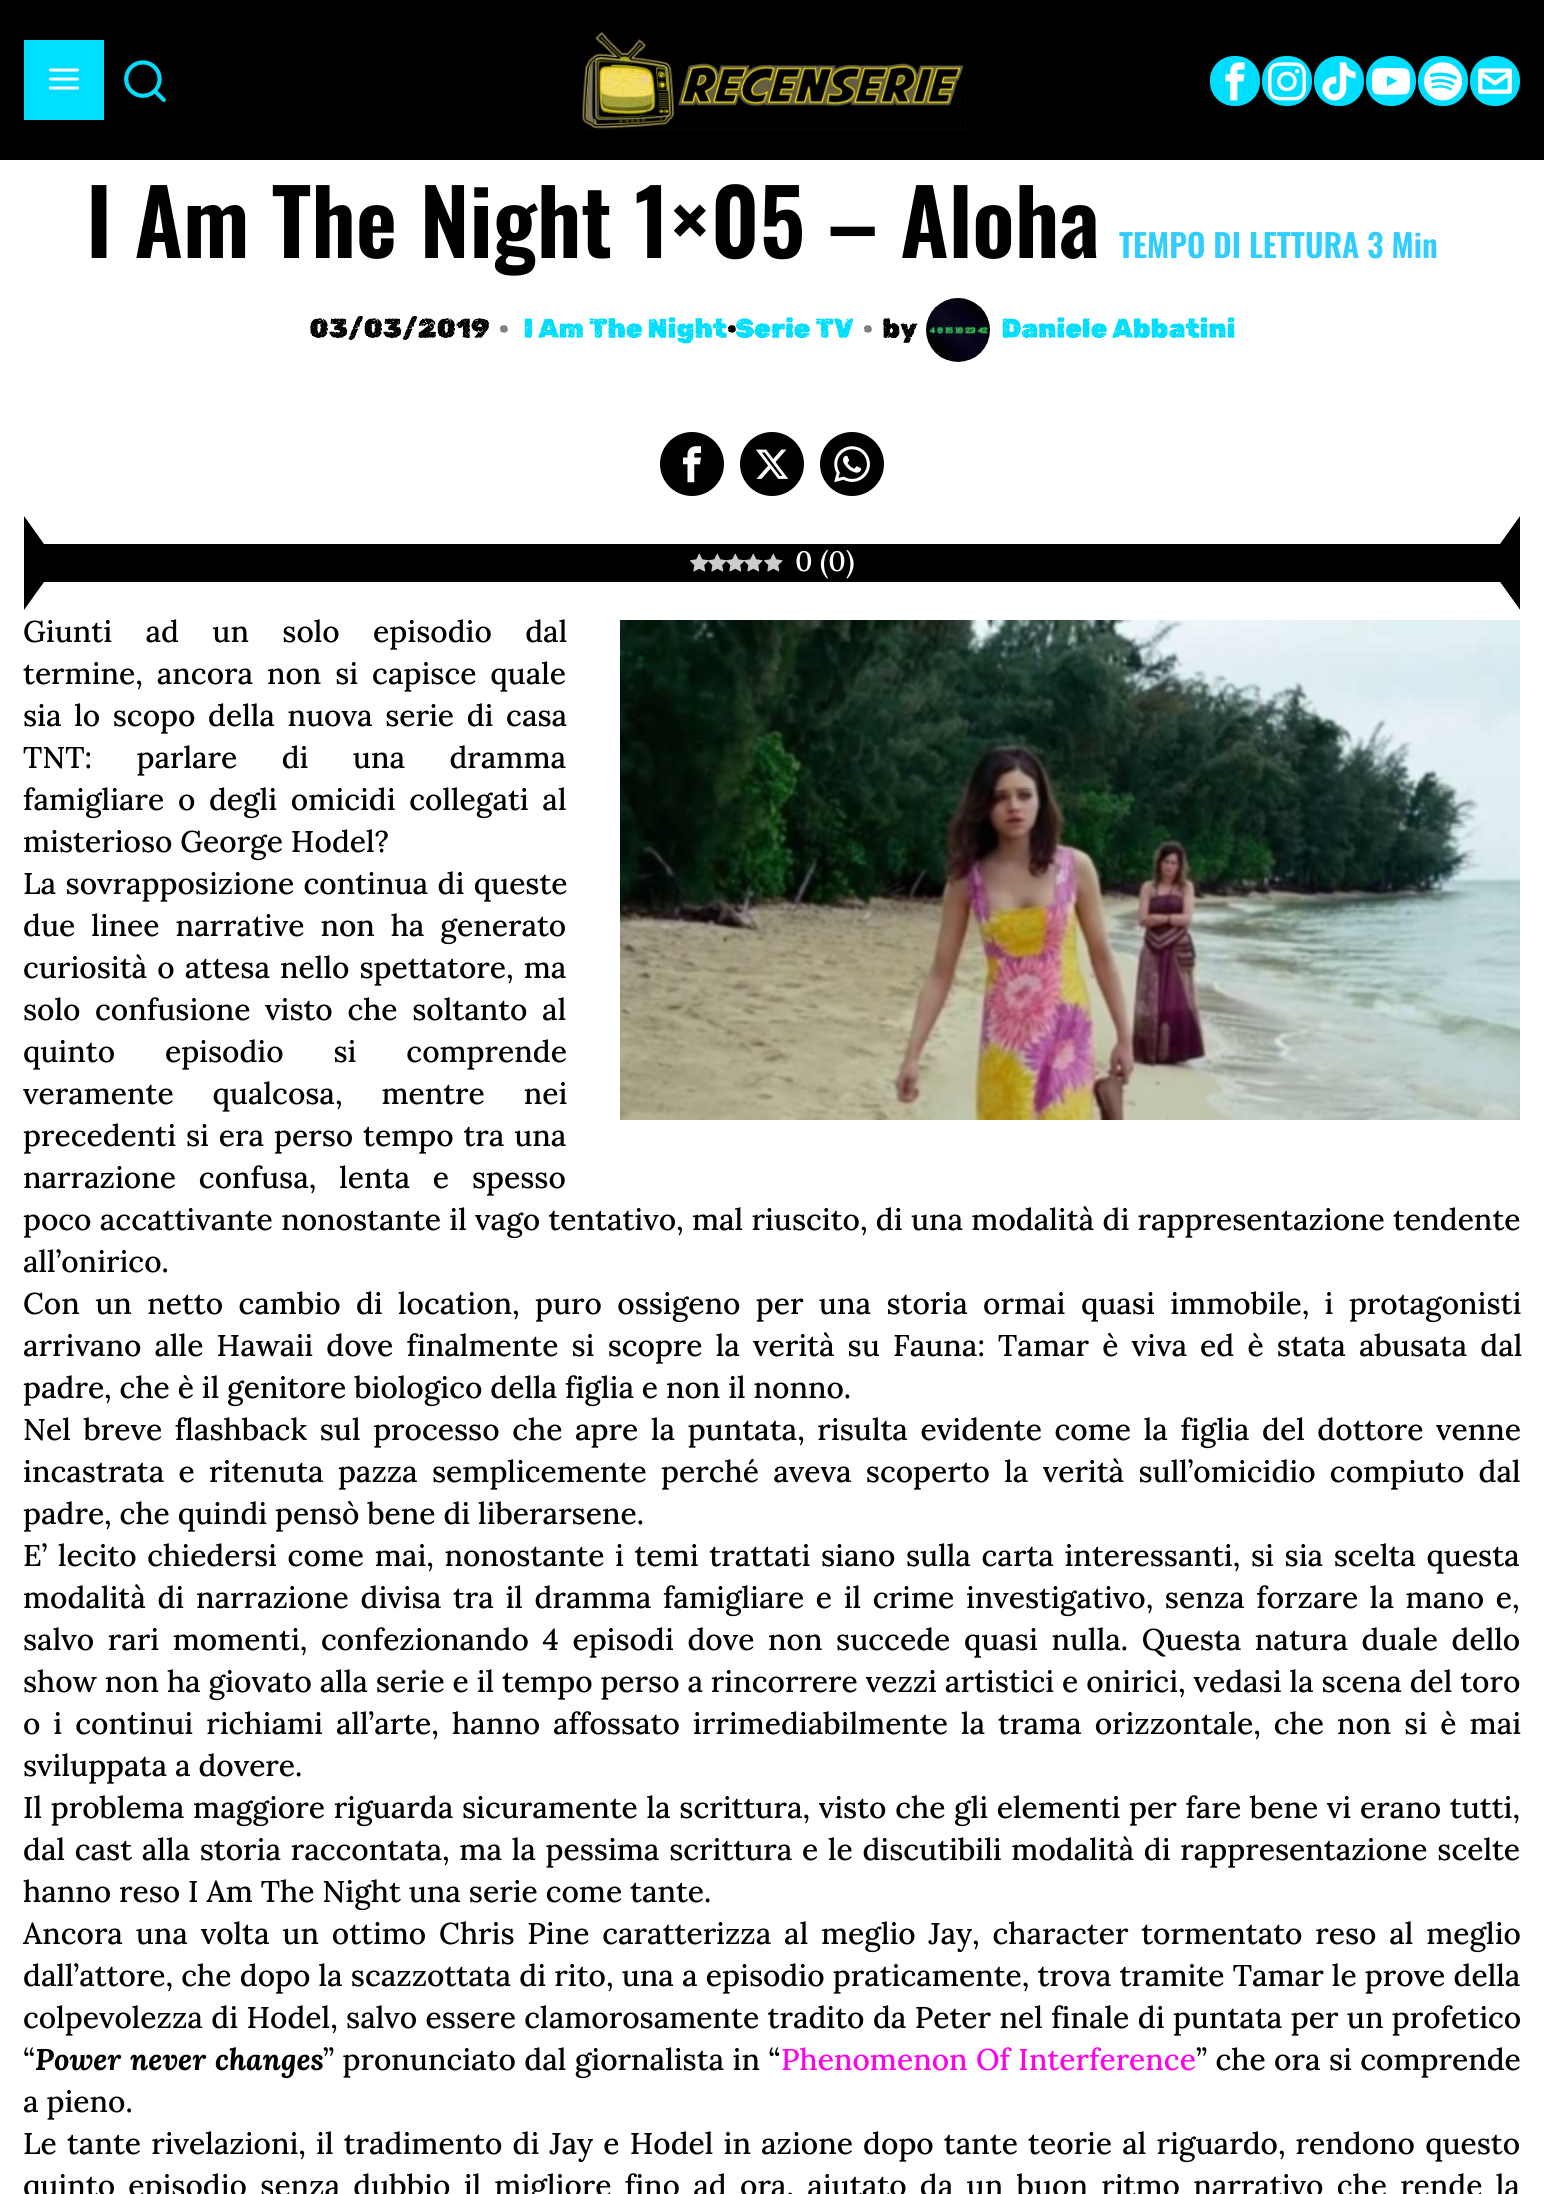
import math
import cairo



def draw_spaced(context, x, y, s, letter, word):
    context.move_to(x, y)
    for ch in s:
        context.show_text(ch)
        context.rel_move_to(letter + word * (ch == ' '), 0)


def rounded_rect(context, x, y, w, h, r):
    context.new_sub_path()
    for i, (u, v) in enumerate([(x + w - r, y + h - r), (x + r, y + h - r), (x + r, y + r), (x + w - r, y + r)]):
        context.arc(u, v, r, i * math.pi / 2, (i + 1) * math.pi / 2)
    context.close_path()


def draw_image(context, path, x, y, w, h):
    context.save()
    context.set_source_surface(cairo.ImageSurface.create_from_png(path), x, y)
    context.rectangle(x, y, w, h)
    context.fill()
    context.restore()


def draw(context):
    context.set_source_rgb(1, 1, 1)
    context.paint()
    context.set_source_rgb(0, 0, 0)
    context.rectangle(0, 0, 1544, 160)
    context.fill()
    context.set_source_rgb(0, 222 / 255, 1)
    context.rectangle(24, 40, 80, 80)
    context.fill()
    draw_image(context, "images/1.png", 49, 68, 30, 22)
    draw_image(context, "images/2.png", 124, 60, 42, 42)
    context.set_source_rgb(41 / 255, 27 / 255, 23 / 255)
    context.rectangle(578, 30, 388, 100)
    context.fill()
    draw_image(context, "images/3.png", 578, 30, 388, 100)
    context.set_source_rgb(0, 222 / 255, 1)
    rounded_rect(context, 1210, 56, 50, 50, 24)
    context.fill()
    draw_image(context, "images/4.png", 1225, 62, 20, 39)
    rounded_rect(context, 1262, 56, 50, 50, 24)
    context.fill()
    draw_image(context, "images/5.png", 1268, 62, 38, 39)
    rounded_rect(context, 1314, 56, 50, 50, 24)
    context.fill()
    draw_image(context, "images/6.png", 1322, 62, 34, 39)
    rounded_rect(context, 1366, 56, 50, 50, 24)
    context.fill()
    draw_image(context, "images/7.png", 1372, 68, 38, 27)
    rounded_rect(context, 1418, 56, 50, 50, 24)
    context.fill()
    draw_image(context, "images/8.png", 1424, 62, 38, 39)
    rounded_rect(context, 1470, 56, 50, 50, 24)
    context.fill()
    draw_image(context, "images/9.png", 1478, 68, 34, 26)
    draw_image(context, "images/10.png", 926, 298, 64, 64)
    context.set_source_rgb(0, 0, 0)
    context.arc(692, 464, 32, 0, 2 * math.pi)
    context.fill()
    draw_image(context, "images/11.png", 683, 446, 18, 37)
    context.arc(772, 464, 32, 0, 2 * math.pi)
    context.fill()
    draw_image(context, "images/12.png", 756, 449, 33, 30)
    context.arc(852, 464, 32, 0, 2 * math.pi)
    context.fill()
    draw_image(context, "images/13.png", 834, 446, 36, 37)
    context.rectangle(44, 544, 1456, 38)
    context.fill()
    context.new_path()
    context.move_to(1520, 516)
    context.line_to(1520, 610)
    context.line_to(1500, 582)
    context.line_to(1500, 544)
    context.close_path()
    context.fill()
    context.set_source_rgb(1, 1, 1)
    context.new_path()
    context.move_to(1520, 610)
    context.line_to(24, 610)
    context.line_to(44, 582)
    context.line_to(1500, 582)
    context.close_path()
    context.fill()
    context.set_source_rgb(0, 0, 0)
    context.new_path()
    context.move_to(24, 610)
    context.line_to(24, 516)
    context.line_to(44, 544)
    context.line_to(44, 582)
    context.close_path()
    context.fill()
    draw_image(context, "images/14.png", 690, 553, 19, 19)
    draw_image(context, "images/15.png", 708, 553, 19, 19)
    draw_image(context, "images/15.png", 726, 553, 19, 19)
    draw_image(context, "images/15.png", 744, 553, 19, 19)
    draw_image(context, "images/14.png", 764, 553, 19, 19)
    draw_image(context, "images/16.png", 620, 620, 900, 500)
    context.select_font_face("Oswald SemiBold")
    context.set_font_size(90)
    context.move_to(86, 258)
    context.show_text("I Am The Night 1×05 – Aloha")
    context.set_font_size(32)
    context.set_source_rgb(48 / 255, 206 / 255, 1)
    context.move_to(1119, 258)
    context.show_text("TEMPO DI LETTURA 3 Min")
    context.select_font_face("Rubik Microbe", cairo.FontSlant.NORMAL, cairo.FontWeight.BOLD)
    context.set_font_size(27)
    context.set_source_rgb(0, 0, 0)
    context.move_to(309, 338)
    context.show_text("03/03/2019")
    context.set_source_rgb(128 / 255, 128 / 255, 128 / 255)
    context.move_to(499, 338)
    context.show_text("·")
    context.set_source_rgb(0, 222 / 255, 1)
    context.move_to(523, 338)
    context.show_text("I Am The Night")
    context.set_source_rgb(0, 0, 0)
    context.move_to(727, 338)
    context.show_text("·")
    context.set_source_rgb(0, 222 / 255, 1)
    context.move_to(735, 338)
    context.show_text("Serie TV")
    context.set_source_rgb(128 / 255, 128 / 255, 128 / 255)
    context.move_to(863, 338)
    context.show_text("·")
    context.set_source_rgb(0, 0, 0)
    context.move_to(882, 338)
    context.show_text("by")
    context.set_source_rgb(0, 222 / 255, 1)
    context.move_to(1001, 338)
    context.show_text("Daniele Abbatini")
    context.select_font_face("Lora Medium")
    context.set_font_size(28)
    context.set_source_rgb(1, 1, 1)
    context.move_to(795, 571)
    context.show_text("0 (0)")
    context.set_font_size(30)
    context.set_source_rgb(0, 0, 0)
    draw_spaced(context, 23, 642, "Giunti ad un solo episodio dal", 0, 25.5)
    draw_spaced(context, 23, 684, "termine, ancora non si capisce quale", 0, 6)
    draw_spaced(context, 23, 726, "sia lo scopo della nuova serie di casa", 0, 4.75)
    draw_spaced(context, 23, 768, "TNT: parlare di una dramma", 0, 36.5)
    draw_spaced(context, 23, 810, "famigliare o degli omicidi collegati al", 0, 5.75)
    context.move_to(23, 852)
    context.show_text("misterioso George Hodel?")
    draw_spaced(context, 23, 894, "La sovrapposizione continua di queste", 0, 1.5)
    draw_spaced(context, 23, 936, "due linee narrative non ha generato", 0, 8)
    draw_spaced(context, 23, 978, "curiosità o attesa nello spettatore, ma", 0, 2.25)
    draw_spaced(context, 23, 1020, "solo confusione visto che soltanto al", 0, 6.75)
    draw_spaced(context, 23, 1062, "quinto episodio si comprende", 0, 42)
    draw_spaced(context, 23, 1104, "veramente qualcosa, mentre nei", 0, 31)
    draw_spaced(context, 23, 1146, "precedenti si era perso tempo tra una", 0, 2)
    draw_spaced(context, 23, 1188, "narrazione confusa, lenta e spesso", 0, 15)
    draw_spaced(context, 23, 1230, "poco accattivante nonostante il vago tentativo, mal riuscito, di una modalità di rappresentazione tendente", 0, 0.4)
    context.move_to(23, 1272)
    context.show_text("all’onirico.")
    draw_spaced(context, 23, 1314, "Con un netto cambio di location, puro ossigeno per una storia ormai quasi immobile, i protagonisti", 0, 7.5)
    draw_spaced(context, 23, 1356, "arrivano alle Hawaii dove finalmente si scopre la verità su Fauna: Tamar è viva ed è stata abusata dal", 0, 5.25)
    context.move_to(23, 1398)
    context.show_text("padre, che è il genitore biologico della figlia e non il nonno.")
    draw_spaced(context, 23, 1440, "Nel breve flashback sul processo che apre la puntata, risulta evidente come la figlia del dottore venne", 0, 4.75)
    draw_spaced(context, 23, 1482, "incastrata e ritenuta pazza semplicemente perché aveva scoperto la verità sull’omicidio compiuto dal", 0, 6.4)
    context.move_to(23, 1524)
    context.show_text("padre, che quindi pensò bene di liberarsene.")
    draw_spaced(context, 23, 1566, "E’ lecito chiedersi come mai, nonostante i temi trattati siano sulla carta interessanti, si sia scelta questa", 0, 2.75)
    draw_spaced(context, 23, 1608, "modalità di narrazione divisa tra il dramma famigliare e il crime investigativo, senza forzare la mano e,", 0, 3.75)
    draw_spaced(context, 23, 1650, "salvo rari momenti, confezionando 4 episodi dove non succede quasi nulla. Questa natura duale dello", 0, 5.75)
    context.move_to(23, 1692)
    context.show_text("show non ha giovato alla serie e il tempo perso a rincorrere vezzi artistici e onirici, vedasi la scena del toro")
    draw_spaced(context, 23, 1734, "o i continui richiami all’arte, hanno affossato irrimediabilmente la trama orizzontale, che non si è mai", 0, 5.1)
    context.move_to(23, 1776)
    context.show_text("sviluppata a dovere.")
    draw_spaced(context, 23, 1818, "Il problema maggiore riguarda sicuramente la scrittura, visto che gli elementi per fare bene vi erano tutti,", 0, 0.8)
    draw_spaced(context, 23, 1860, "dal cast alla storia raccontata, ma la pessima scrittura e le discutibili modalità di rappresentazione scelte", 0, 1.8)
    context.move_to(23, 1902)
    context.show_text("hanno reso I Am The Night una serie come tante.")
    draw_spaced(context, 23, 1944, "Ancora una volta un ottimo Chris Pine caratterizza al meglio Jay, character tormentato reso al meglio", 0, 4.9)
    draw_spaced(context, 23, 1986, "dall’attore, che dopo la scazzottata di rito, una a episodio praticamente, trova tramite Tamar le prove della", 0, 0.3)
    draw_spaced(context, 23, 2028, "colpevolezza di Hodel, salvo essere clamorosamente tradito da Peter nel finale di puntata per un profetico", 0, 0.5)
    context.move_to(23, 2070)
    context.show_text("“")
    context.select_font_face("Lora", cairo.FontSlant.ITALIC, cairo.FontWeight.BOLD)
    draw_spaced(context, 35, 2070, "Power never changes", 0, 1)
    context.select_font_face("Lora Medium")
    draw_spaced(context, 323, 2070, "” pronunciato dal giornalista in “", 0, 0.5)
    context.set_source_rgb(1, 0, 236 / 255)
    draw_spaced(context, 781, 2070, "Phenomenon Of Interference", 0, 0.5)
    context.set_source_rgb(0, 0, 0)
    draw_spaced(context, 1196, 2070, "” che ora si comprende", 0, 0.5)
    context.move_to(23, 2112)
    context.show_text("a pieno.")
    draw_spaced(context, 23, 2154, "Le tante rivelazioni, il tradimento di Jay e Hodel in azione dopo tante teorie al riguardo, rendono questo", 0, 2.25)
    draw_spaced(context, 23, 2196, "quinto episodio senza dubbio il migliore fino ad ora, aiutato da un buon ritmo narrativo che rende la", 0, 5.4)


surface = cairo.ImageSurface(cairo.Format.RGB24, 1544, 2194)
context = cairo.Context(surface)
options = cairo.FontOptions()
options.set_hint_metrics(cairo.HintMetrics.OFF)
options.set_hint_style(cairo.HintStyle.NONE)
context.set_font_options(options)
context.set_miter_limit(4)
draw(context)
surface.write_to_png("out.png")
